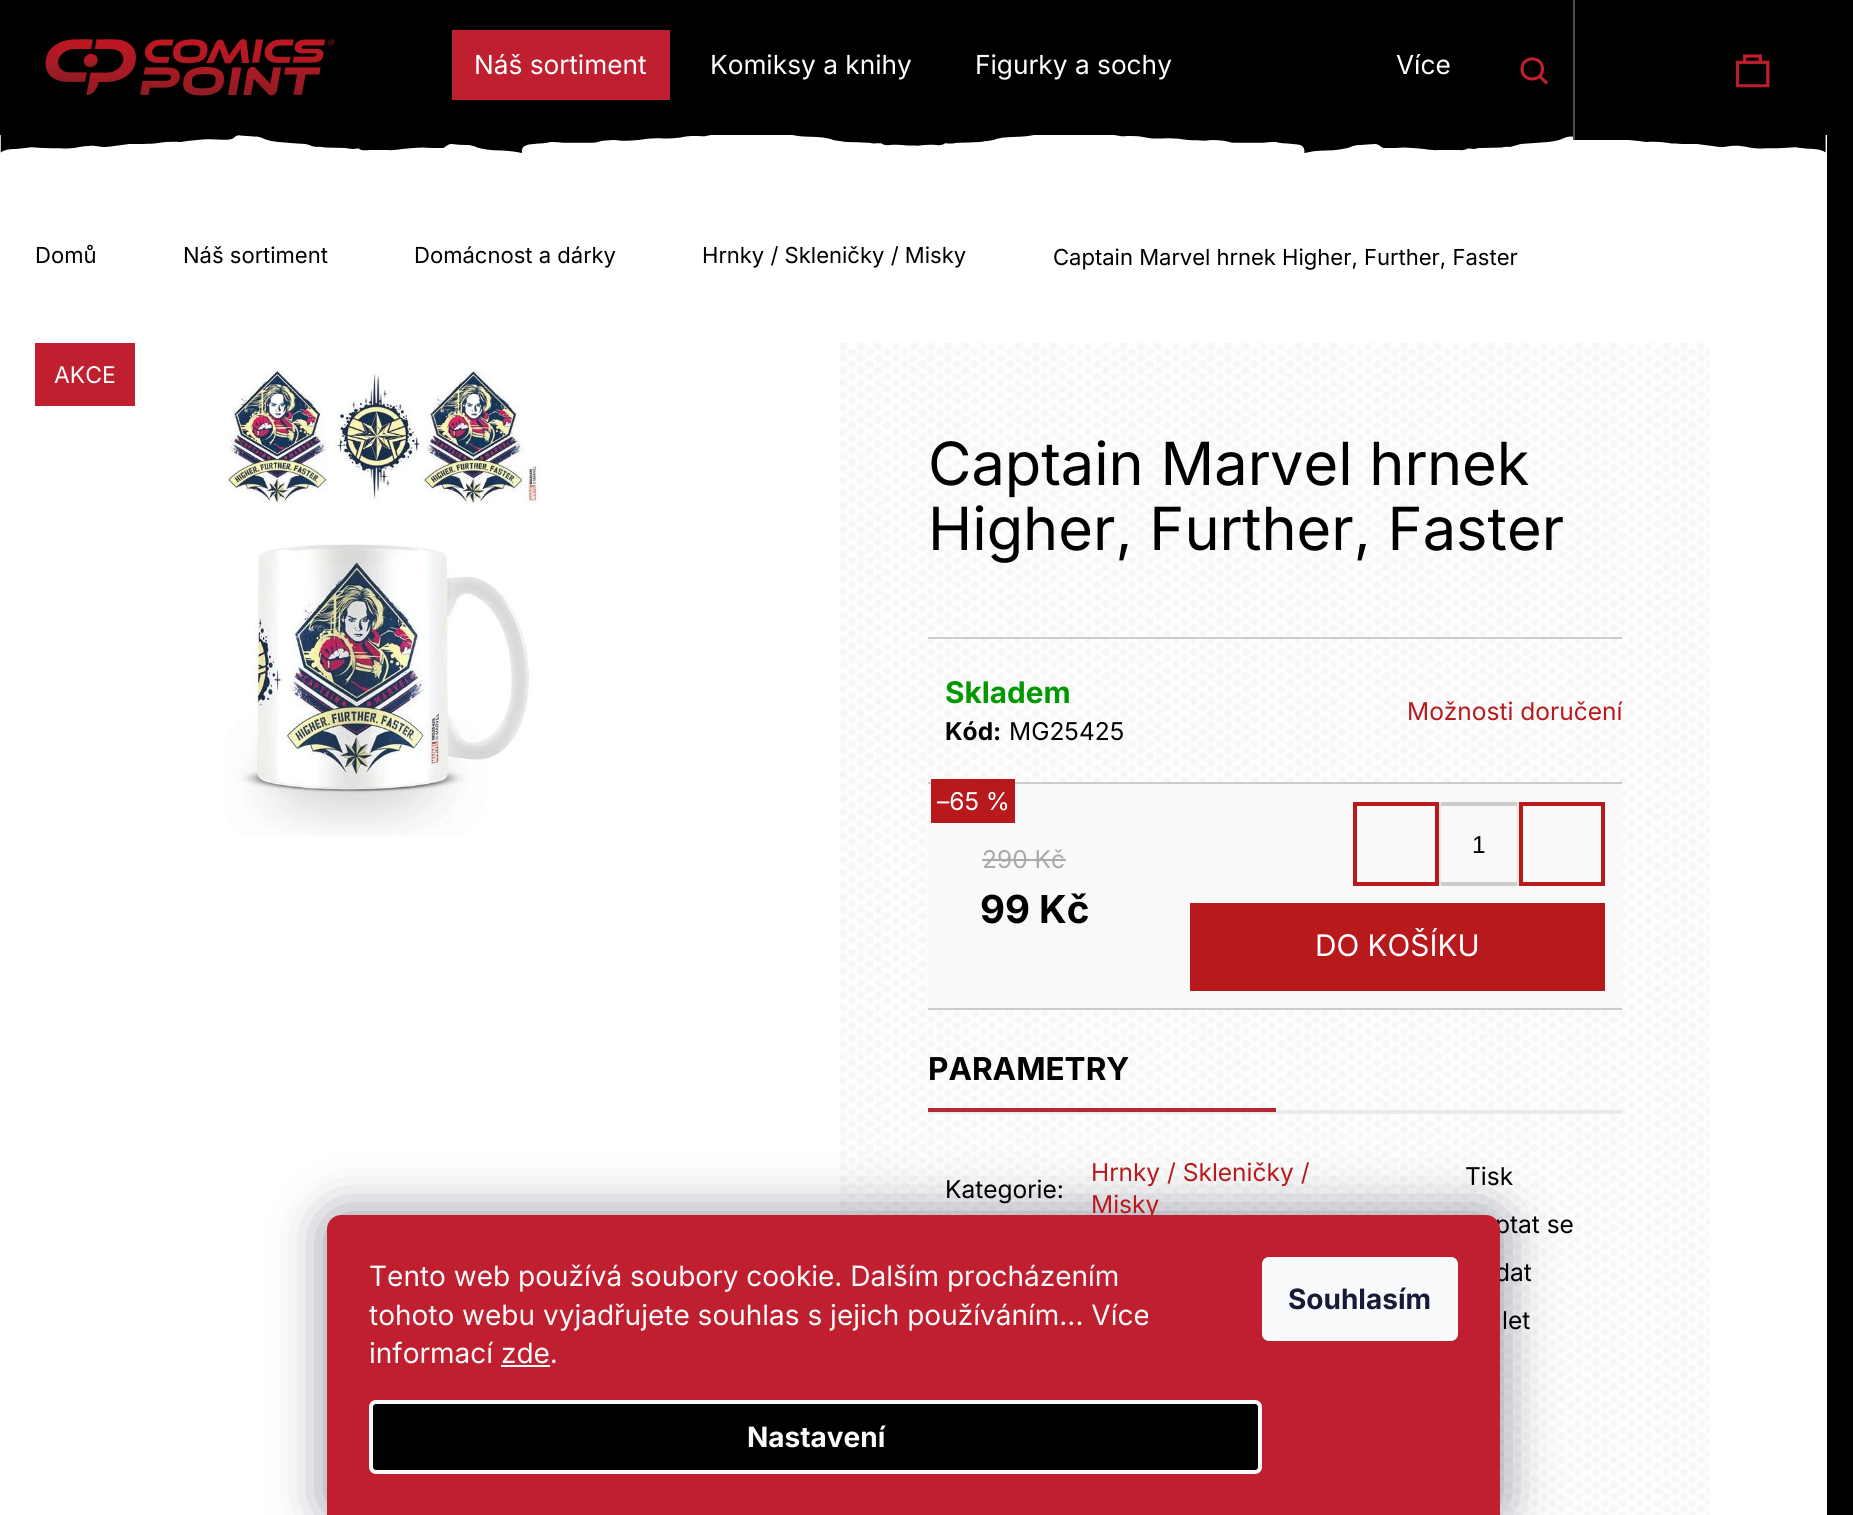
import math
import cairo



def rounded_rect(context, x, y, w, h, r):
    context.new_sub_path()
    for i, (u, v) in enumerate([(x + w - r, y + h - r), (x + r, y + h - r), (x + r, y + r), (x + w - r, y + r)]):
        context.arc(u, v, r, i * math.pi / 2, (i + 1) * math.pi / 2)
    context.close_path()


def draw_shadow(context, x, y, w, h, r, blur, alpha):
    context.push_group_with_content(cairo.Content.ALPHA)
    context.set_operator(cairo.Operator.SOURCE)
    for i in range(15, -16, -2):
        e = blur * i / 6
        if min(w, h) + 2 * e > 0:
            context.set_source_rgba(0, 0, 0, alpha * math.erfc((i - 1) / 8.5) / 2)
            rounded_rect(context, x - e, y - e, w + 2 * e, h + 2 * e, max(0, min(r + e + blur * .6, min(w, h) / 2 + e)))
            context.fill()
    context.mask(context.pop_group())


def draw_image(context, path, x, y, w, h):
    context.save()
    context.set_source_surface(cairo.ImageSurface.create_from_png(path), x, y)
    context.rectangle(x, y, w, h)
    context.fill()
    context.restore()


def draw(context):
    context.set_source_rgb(0, 0, 0)
    context.paint()
    context.set_source_rgb(1, 1, 1)
    context.rectangle(0, 135, 1827, 1380)
    context.fill()
    draw_image(context, "images/1.png", 45, 39, 290, 57)
    context.set_source_rgb(191 / 255, 31 / 255, 46 / 255)
    context.rectangle(452, 30, 218, 70)
    context.fill()
    context.new_path()
    context.move_to(1542.5, 69)
    context.curve_to(1542.5, 55.5, 1522, 55.5, 1522, 69)
    context.curve_to(1522, 82.5, 1542.5, 82, 1542.5, 69)
    context.close_path()
    context.move_to(1547, 83.5)
    context.line_to(1539.5, 76)
    context.set_line_width(3.1)
    context.stroke()
    draw_image(context, "images/3.png", 0, 135, 1826, 18)
    context.set_source_rgb(0, 0, 0)
    context.rectangle(1575, 135, 54, 5)
    context.fill()
    context.set_source_rgb(77 / 255, 77 / 255, 77 / 255)
    context.rectangle(1573, 0, 2, 140)
    context.fill()
    draw_image(context, "images/2.png", 1735, 54, 35, 34)
    context.set_source_rgb(191 / 255, 31 / 255, 46 / 255)
    context.rectangle(35, 343, 100, 63)
    context.fill()
    draw_image(context, "images/4.png", 225, 367, 316, 469)
    draw_image(context, "images/5.png", 840, 343, 870, 1172)
    context.set_source_rgb(204 / 255, 204 / 255, 204 / 255)
    context.rectangle(928, 637, 694, 2)
    context.fill()
    context.rectangle(928, 782, 694, 2)
    context.fill()
    context.set_source_rgb(249 / 255, 249 / 255, 249 / 255)
    context.rectangle(928, 784, 694, 224)
    context.fill()
    context.set_source_rgb(204 / 255, 204 / 255, 204 / 255)
    context.rectangle(928, 1008, 694, 2)
    context.fill()
    context.set_source_rgb(184 / 255, 25 / 255, 29 / 255)
    context.rectangle(931, 779, 84, 44)
    context.fill()
    context.set_source_rgb(170 / 255, 170 / 255, 170 / 255)
    context.rectangle(982, 859, 84, 2)
    context.fill()
    context.rectangle(1439, 804, 80, 80)
    context.set_source_rgb(204 / 255, 204 / 255, 204 / 255)
    context.set_line_width(4)
    context.stroke()
    context.set_source_rgb(230 / 255, 230 / 255, 230 / 255)
    context.rectangle(1439, 802, 2, 84)
    context.fill()
    context.rectangle(1355, 804, 82, 80)
    context.set_source_rgb(184 / 255, 25 / 255, 29 / 255)
    context.stroke()
    context.set_source_rgb(230 / 255, 230 / 255, 230 / 255)
    context.rectangle(1517, 802, 2, 84)
    context.fill()
    context.rectangle(1521, 804, 82, 80)
    context.set_source_rgb(184 / 255, 25 / 255, 29 / 255)
    context.stroke()
    context.rectangle(1190, 903, 415, 88)
    context.fill()
    context.set_source_rgb(231 / 255, 235 / 255, 238 / 255)
    context.rectangle(928, 1110, 694, 4)
    context.fill()
    context.set_source_rgb(178 / 255, 40 / 255, 53 / 255)
    context.rectangle(928, 1108, 348, 4)
    context.fill()
    context.set_source_rgb(27 / 255, 25 / 255, 57 / 255)
    draw_shadow(context, 327, 1215, 1173, 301, 14, 26, 0.5)
    context.select_font_face("Inter")
    context.set_font_size(26.25)
    context.set_source_rgb(1, 1, 1)
    context.move_to(474, 74)
    context.show_text("Náš sortiment")
    context.move_to(710, 74)
    context.show_text("Komiksy a knihy")
    context.move_to(975, 74)
    context.show_text("Figurky a sochy")
    context.move_to(1396, 74)
    context.show_text("Více")
    context.set_font_size(22.05)
    context.set_source_rgb(0, 0, 0)
    context.move_to(35, 263)
    context.show_text("Domů")
    context.move_to(183, 263)
    context.show_text("Náš sortiment")
    context.move_to(414, 263)
    context.show_text("Domácnost a dárky")
    context.move_to(702, 263)
    context.show_text("Hrnky / Skleničky / Misky")
    context.move_to(1053, 265)
    context.show_text("Captain Marvel hrnek Higher, Further, Faster")
    context.set_font_size(23)
    context.set_source_rgb(1, 1, 1)
    context.move_to(54, 383)
    context.show_text("AKCE")
    context.set_font_size(59.5)
    context.set_source_rgb(0, 0, 0)
    context.move_to(928, 485)
    context.show_text("Captain Marvel hrnek")
    context.move_to(928, 550)
    context.show_text("Higher, Further, Faster")
    context.select_font_face("Inter", cairo.FontSlant.NORMAL, cairo.FontWeight.BOLD)
    context.set_font_size(29.75)
    context.set_source_rgb(0, 153 / 255, 1 / 255)
    context.move_to(945, 703)
    context.show_text("Skladem")
    context.set_font_size(24.5)
    context.set_source_rgb(0, 0, 0)
    context.move_to(945, 740)
    context.show_text("Kód:")
    context.select_font_face("Inter")
    context.move_to(1009, 740)
    context.show_text("MG25425")
    context.set_source_rgb(184 / 255, 25 / 255, 29 / 255)
    context.move_to(1407, 720)
    context.show_text("Možnosti doručení")
    context.set_source_rgb(1, 1, 1)
    context.move_to(937, 810)
    context.show_text("–65 %")
    context.set_source_rgb(170 / 255, 170 / 255, 170 / 255)
    context.move_to(982, 868)
    context.show_text("290 Kč")
    context.select_font_face("Inter", cairo.FontSlant.NORMAL, cairo.FontWeight.BOLD)
    context.set_font_size(38.5)
    context.set_source_rgb(0, 0, 0)
    context.move_to(980, 923)
    context.show_text("99 Kč")
    context.select_font_face("Liberation Sans")
    context.set_font_size(24.5)
    context.move_to(1472, 853)
    context.show_text("1")
    context.select_font_face("Inter")
    context.set_font_size(29.75)
    context.set_source_rgb(1, 1, 1)
    context.move_to(1315, 956)
    context.show_text("DO KOŠÍKU")
    context.select_font_face("Inter", cairo.FontSlant.NORMAL, cairo.FontWeight.BOLD)
    context.set_font_size(31.5)
    context.set_source_rgb(0, 0, 0)
    context.move_to(928, 1080)
    context.show_text("PARAMETRY")
    context.select_font_face("Inter")
    context.set_font_size(24.5)
    context.move_to(945, 1198)
    context.show_text("Kategorie:")
    context.set_source_rgb(184 / 255, 25 / 255, 29 / 255)
    context.move_to(1091, 1181)
    context.show_text("Hrnky / Skleničky /")
    context.move_to(1091, 1213)
    context.show_text("Misky")
    context.set_source_rgb(0, 0, 0)
    context.move_to(1465, 1185)
    context.show_text("Tisk")
    context.move_to(1495, 1233)
    context.show_text("ptat se")
    context.move_to(1495, 1281)
    context.show_text("dat")
    context.move_to(1502, 1329)
    context.show_text("let")
    context.set_source_rgb(191 / 255, 31 / 255, 46 / 255)
    context.new_path()
    context.move_to(341, 1215)
    context.line_to(1486, 1215)
    context.curve_to(1493.5, 1215, 1500, 1221.5, 1500, 1229)
    context.line_to(1500, 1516)
    context.line_to(327, 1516)
    context.line_to(327, 1229)
    context.curve_to(327, 1221.5, 333.5, 1215, 341, 1215)
    context.close_path()
    context.fill()
    context.set_font_size(28)
    context.set_source_rgb(248 / 255, 250 / 255, 251 / 255)
    context.move_to(369, 1286)
    context.show_text("Tento web používá soubory cookie. Dalším procházením")
    context.move_to(369, 1325)
    context.show_text("tohoto webu vyjadřujete souhlas s jejich používáním... Více")
    context.move_to(369, 1363)
    context.show_text("informací zde.")
    context.rectangle(501, 1365, 49, 2)
    context.fill()
    context.set_source_rgb(0, 0, 0)
    rounded_rect(context, 371, 1402, 889, 70, 5)
    context.fill_preserve()
    context.set_source_rgb(248 / 255, 250 / 255, 251 / 255)
    context.stroke()
    context.select_font_face("Inter", cairo.FontSlant.NORMAL, cairo.FontWeight.BOLD)
    context.move_to(747, 1447)
    context.show_text("Nastavení")
    rounded_rect(context, 1262, 1257, 196, 84, 7)
    context.fill()
    context.set_source_rgb(26 / 255, 25 / 255, 55 / 255)
    context.move_to(1288, 1309)
    context.show_text("Souhlasím")


surface = cairo.ImageSurface(cairo.Format.RGB24, 1853, 1515)
context = cairo.Context(surface)
options = cairo.FontOptions()
options.set_hint_metrics(cairo.HintMetrics.OFF)
options.set_hint_style(cairo.HintStyle.NONE)
context.set_font_options(options)
context.set_miter_limit(4)
draw(context)
surface.write_to_png("out.png")
